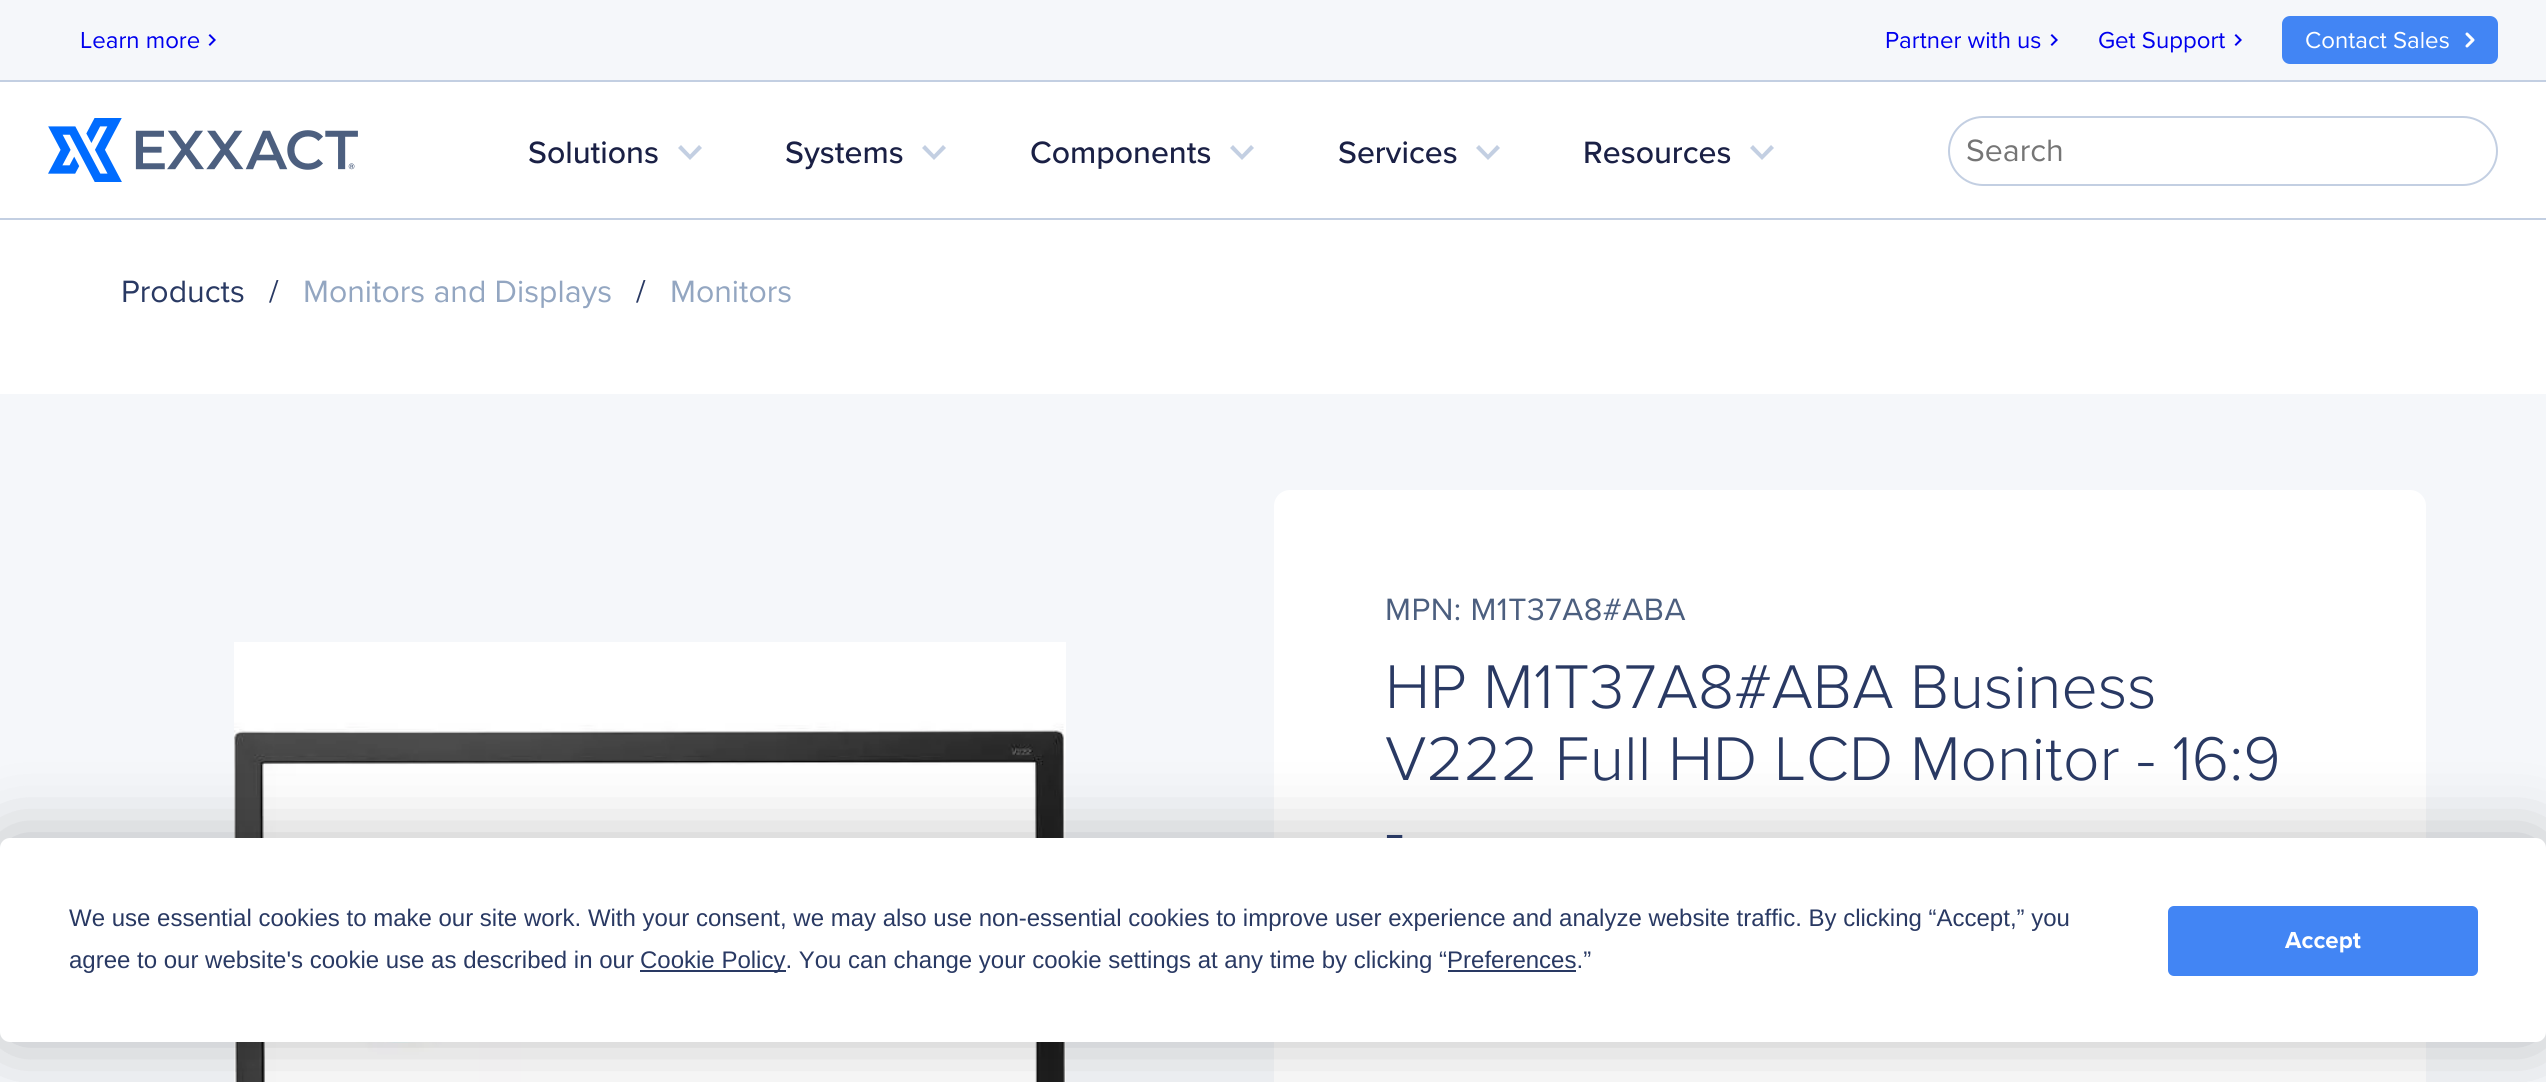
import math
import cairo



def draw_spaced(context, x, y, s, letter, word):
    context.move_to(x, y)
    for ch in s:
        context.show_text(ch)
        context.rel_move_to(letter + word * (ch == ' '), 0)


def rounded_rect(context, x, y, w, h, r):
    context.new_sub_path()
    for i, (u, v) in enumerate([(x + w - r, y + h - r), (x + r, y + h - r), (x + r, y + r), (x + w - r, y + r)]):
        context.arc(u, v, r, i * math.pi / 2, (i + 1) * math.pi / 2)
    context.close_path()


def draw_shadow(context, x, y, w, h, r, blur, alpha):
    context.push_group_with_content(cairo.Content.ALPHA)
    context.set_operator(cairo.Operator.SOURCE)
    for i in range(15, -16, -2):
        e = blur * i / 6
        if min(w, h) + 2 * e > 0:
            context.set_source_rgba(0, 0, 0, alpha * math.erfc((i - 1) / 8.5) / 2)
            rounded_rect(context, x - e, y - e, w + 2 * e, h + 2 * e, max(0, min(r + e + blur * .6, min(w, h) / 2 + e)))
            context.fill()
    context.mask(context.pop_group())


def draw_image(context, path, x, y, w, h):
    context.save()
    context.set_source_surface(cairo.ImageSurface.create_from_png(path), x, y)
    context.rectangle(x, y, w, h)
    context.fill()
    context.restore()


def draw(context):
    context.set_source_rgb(1, 1, 1)
    context.paint()
    context.set_source_rgb(245 / 255, 247 / 255, 250 / 255)
    context.rectangle(0, 0, 2546, 80)
    context.fill()
    draw_image(context, "images/1.png", 208, 34, 8, 12)
    draw_image(context, "images/1.png", 2050, 34, 8, 12)
    draw_image(context, "images/1.png", 2234, 34, 8, 12)
    context.set_source_rgb(66 / 255, 133 / 255, 244 / 255)
    rounded_rect(context, 2282, 16, 216, 48, 8)
    context.fill()
    context.new_path()
    context.move_to(2467, 46)
    context.line_to(2473, 40)
    context.line_to(2467, 34)
    context.set_source_rgb(1, 1, 1)
    context.set_line_width(3)
    context.set_line_cap(cairo.LineCap.ROUND)
    context.set_line_join(cairo.LineJoin.ROUND)
    context.stroke()
    context.set_source_rgb(195 / 255, 207 / 255, 226 / 255)
    context.rectangle(0, 80, 2546, 2)
    context.fill()
    context.rectangle(0, 218, 2546, 2)
    context.fill()
    draw_image(context, "images/2.png", 48, 118, 310, 64)
    context.new_path()
    context.move_to(699, 145)
    context.line_to(702, 148)
    context.line_to(690, 160)
    context.line_to(678, 148)
    context.line_to(681, 145)
    context.line_to(690, 154.5)
    context.close_path()
    context.fill()
    context.new_path()
    context.move_to(943, 145)
    context.line_to(946, 148)
    context.line_to(934, 160)
    context.line_to(922, 148)
    context.line_to(925, 145)
    context.line_to(934, 154.5)
    context.close_path()
    context.fill()
    context.new_path()
    context.move_to(1251, 145)
    context.line_to(1254, 148)
    context.line_to(1242, 160)
    context.line_to(1230, 148)
    context.line_to(1233, 145)
    context.line_to(1242, 154.5)
    context.close_path()
    context.fill()
    context.new_path()
    context.move_to(1497, 145)
    context.line_to(1500, 148)
    context.line_to(1488, 160)
    context.line_to(1476, 148)
    context.line_to(1479, 145)
    context.line_to(1488, 154.5)
    context.close_path()
    context.fill()
    context.new_path()
    context.move_to(1771, 145)
    context.line_to(1774, 148)
    context.line_to(1762, 160)
    context.line_to(1750, 148)
    context.line_to(1753, 145)
    context.line_to(1762, 154.5)
    context.close_path()
    context.fill()
    rounded_rect(context, 1949, 117, 548, 68, 34)
    context.set_line_width(2)
    context.set_line_cap(cairo.LineCap.BUTT)
    context.set_line_join(cairo.LineJoin.MITER)
    context.stroke()
    context.set_source_rgb(245 / 255, 247 / 255, 250 / 255)
    context.rectangle(0, 394, 2546, 688)
    context.fill()
    draw_image(context, "images/3.png", 234, 642, 832, 440)
    context.set_source_rgb(1, 1, 1)
    rounded_rect(context, 1274, 490, 1152, 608, 16)
    context.fill()
    context.set_source_rgb(0, 0, 0)
    draw_shadow(context, 0, 838, 2546, 204, 10, 35, 0.25)
    context.select_font_face("Proxima Nova")
    context.set_font_size(24)
    context.set_source_rgb(0, 0, 238 / 255)
    context.move_to(80, 48)
    context.show_text("Learn more")
    context.move_to(1885, 48)
    context.show_text("Partner with us")
    context.move_to(2098, 48)
    context.show_text("Get Support")
    context.set_source_rgb(1, 1, 1)
    context.move_to(2305, 48)
    context.show_text("Contact Sales")
    context.select_font_face("Proxima Nova Medium")
    context.set_font_size(32)
    context.set_source_rgb(26 / 255, 32 / 255, 69 / 255)
    context.move_to(528, 163)
    context.show_text("Solutions")
    context.move_to(785, 163)
    context.show_text("Systems")
    context.move_to(1030, 163)
    context.show_text("Components")
    context.move_to(1338, 163)
    context.show_text("Services")
    context.move_to(1583, 163)
    context.show_text("Resources")
    context.select_font_face("Proxima Nova")
    context.set_source_rgb(117 / 255, 117 / 255, 117 / 255)
    context.move_to(1966, 161)
    context.show_text("Search")
    context.set_source_rgb(41 / 255, 57 / 255, 99 / 255)
    context.move_to(121, 302)
    context.show_text("Products")
    context.move_to(269, 302)
    context.show_text("/")
    context.set_source_rgb(147 / 255, 166 / 255, 193 / 255)
    context.move_to(303, 302)
    context.show_text("Monitors and Displays")
    context.set_source_rgb(41 / 255, 57 / 255, 99 / 255)
    context.move_to(636, 302)
    context.show_text("/")
    context.set_source_rgb(147 / 255, 166 / 255, 193 / 255)
    context.move_to(670, 302)
    context.show_text("Monitors")
    context.set_source_rgb(76 / 255, 95 / 255, 127 / 255)
    draw_spaced(context, 1385, 620, "MPN: M1T37A8#ABA", 0.5, 0)
    context.select_font_face("Proxima Nova Light")
    context.set_font_size(64)
    context.set_source_rgb(41 / 255, 57 / 255, 99 / 255)
    context.move_to(1385, 708)
    context.show_text("HP M1T37A8#ABA Business")
    context.move_to(1385, 780)
    context.show_text("V222 Full HD LCD Monitor - 16:9")
    context.move_to(1385, 852)
    context.show_text("-")
    context.set_source_rgb(1, 1, 1)
    rounded_rect(context, 0, 838, 2546, 204, 10)
    context.fill()
    context.select_font_face("Liberation Sans")
    context.set_font_size(24)
    context.set_source_rgb(41 / 255, 57 / 255, 99 / 255)
    context.move_to(69, 926)
    context.show_text("We use essential cookies to make our site work. With your consent, we may also use non-essential cookies to improve user experience and analyze website traffic. By clicking “Accept,” you")
    context.move_to(69, 968)
    context.show_text("agree to our website's cookie use as described in our")
    context.rectangle(640, 970, 146, 2)
    context.fill()
    context.move_to(640, 968)
    context.show_text("Cookie Policy. You can change your cookie settings at any time by clicking “Preferences.”")
    context.rectangle(1448, 970, 128, 2)
    context.fill()
    context.set_source_rgb(66 / 255, 133 / 255, 244 / 255)
    rounded_rect(context, 2169, 907, 308, 68, 5)
    context.fill_preserve()
    context.stroke()
    context.select_font_face("Proxima Nova", cairo.FontSlant.NORMAL, cairo.FontWeight.BOLD)
    context.set_source_rgb(1, 1, 1)
    context.move_to(2285, 948)
    context.show_text("Accept")


surface = cairo.ImageSurface(cairo.Format.RGB24, 2546, 1082)
context = cairo.Context(surface)
options = cairo.FontOptions()
options.set_hint_metrics(cairo.HintMetrics.OFF)
options.set_hint_style(cairo.HintStyle.NONE)
context.set_font_options(options)
context.set_miter_limit(4)
draw(context)
surface.write_to_png("out.png")
